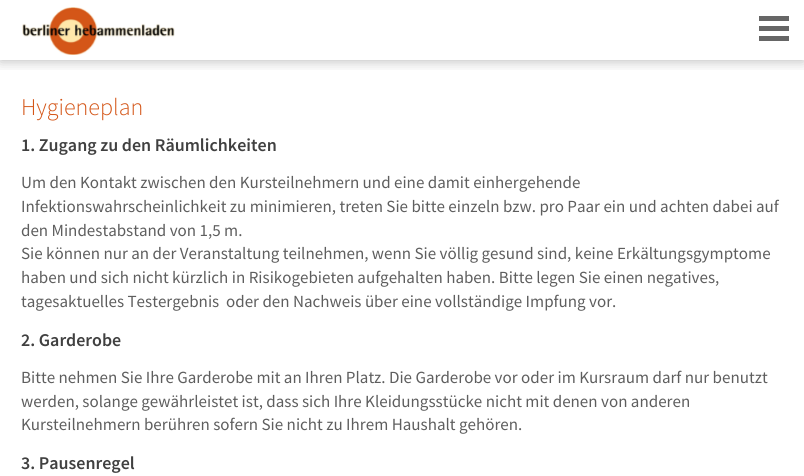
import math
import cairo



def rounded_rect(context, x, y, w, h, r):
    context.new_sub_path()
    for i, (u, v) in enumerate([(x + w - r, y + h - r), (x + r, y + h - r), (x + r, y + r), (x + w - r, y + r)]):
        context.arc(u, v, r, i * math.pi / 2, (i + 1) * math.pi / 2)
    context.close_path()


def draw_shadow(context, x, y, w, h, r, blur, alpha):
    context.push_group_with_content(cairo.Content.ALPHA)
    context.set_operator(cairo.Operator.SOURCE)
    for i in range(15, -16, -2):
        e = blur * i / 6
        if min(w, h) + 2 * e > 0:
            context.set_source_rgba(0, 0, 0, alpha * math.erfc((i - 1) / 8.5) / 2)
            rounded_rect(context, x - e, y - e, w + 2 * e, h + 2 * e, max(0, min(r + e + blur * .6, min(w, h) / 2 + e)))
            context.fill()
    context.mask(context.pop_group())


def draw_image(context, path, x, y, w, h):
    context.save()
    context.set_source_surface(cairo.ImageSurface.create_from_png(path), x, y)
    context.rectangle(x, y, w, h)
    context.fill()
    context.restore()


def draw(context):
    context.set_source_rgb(1, 1, 1)
    context.paint()
    context.save()
    context.rectangle(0, 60, 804, 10)
    context.clip()
    context.set_source_rgb(0, 0, 0)
    draw_shadow(context, 0, 0, 804, 60, 0, 7, 0.3)
    context.restore()
    draw_image(context, "images/1.png", 22, 7, 153, 48)
    context.set_source_rgb(102 / 255, 102 / 255, 102 / 255)
    context.rectangle(759, 26, 30, 5)
    context.fill()
    context.rectangle(759, 16, 30, 5)
    context.fill()
    context.rectangle(759, 36, 30, 5)
    context.fill()
    context.select_font_face("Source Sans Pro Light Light")
    context.set_font_size(24)
    context.set_source_rgb(212 / 255, 86 / 255, 24 / 255)
    context.move_to(21, 115)
    context.show_text("Hygieneplan")
    context.select_font_face("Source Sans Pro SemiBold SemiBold")
    context.set_font_size(18)
    context.set_source_rgb(64 / 255, 64 / 255, 64 / 255)
    context.move_to(21, 151)
    context.show_text("1. Zugang zu den Räumlichkeiten")
    context.select_font_face("Source Sans Pro")
    context.set_font_size(17)
    context.set_source_rgb(94 / 255, 94 / 255, 94 / 255)
    context.move_to(21, 188)
    context.show_text("Um den Kontakt zwischen den Kursteilnehmern und eine damit einhergehende")
    context.move_to(21, 212)
    context.show_text("Infektionswahrscheinlichkeit zu minimieren, treten Sie bitte einzeln bzw. pro Paar ein und achten dabei auf")
    context.move_to(21, 236)
    context.show_text("den Mindestabstand von 1,5 m.")
    context.move_to(21, 259)
    context.show_text("Sie können nur an der Veranstaltung teilnehmen, wenn Sie völlig gesund sind, keine Erkältungsgymptome")
    context.move_to(21, 283)
    context.show_text("haben und sich nicht kürzlich in Risikogebieten aufgehalten haben. Bitte legen Sie einen negatives,")
    context.move_to(21, 307)
    context.show_text("tagesaktuelles Testergebnis  oder den Nachweis über eine vollständige Impfung vor.")
    context.select_font_face("Source Sans Pro SemiBold SemiBold")
    context.set_font_size(18)
    context.set_source_rgb(64 / 255, 64 / 255, 64 / 255)
    context.move_to(21, 346)
    context.show_text("2. Garderobe")
    context.select_font_face("Source Sans Pro")
    context.set_font_size(17)
    context.set_source_rgb(94 / 255, 94 / 255, 94 / 255)
    context.move_to(21, 383)
    context.show_text("Bitte nehmen Sie Ihre Garderobe mit an Ihren Platz. Die Garderobe vor oder im Kursraum darf nur benutzt")
    context.move_to(21, 407)
    context.show_text("werden, solange gewährleistet ist, dass sich Ihre Kleidungsstücke nicht mit denen von anderen")
    context.move_to(21, 430)
    context.show_text("Kursteilnehmern berühren sofern Sie nicht zu Ihrem Haushalt gehören.")
    context.select_font_face("Source Sans Pro SemiBold SemiBold")
    context.set_font_size(18)
    context.set_source_rgb(64 / 255, 64 / 255, 64 / 255)
    context.move_to(21, 469)
    context.show_text("3. Pausenregel")


surface = cairo.ImageSurface(cairo.Format.RGB24, 804, 476)
context = cairo.Context(surface)
options = cairo.FontOptions()
options.set_hint_metrics(cairo.HintMetrics.OFF)
options.set_hint_style(cairo.HintStyle.NONE)
context.set_font_options(options)
context.set_miter_limit(4)
draw(context)
surface.write_to_png("out.png")
